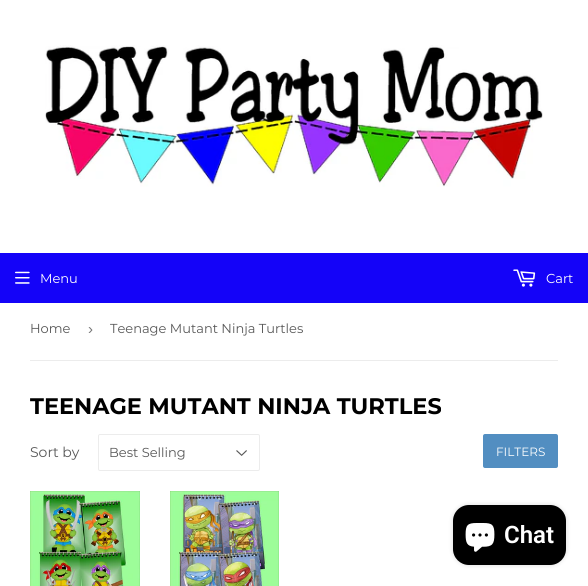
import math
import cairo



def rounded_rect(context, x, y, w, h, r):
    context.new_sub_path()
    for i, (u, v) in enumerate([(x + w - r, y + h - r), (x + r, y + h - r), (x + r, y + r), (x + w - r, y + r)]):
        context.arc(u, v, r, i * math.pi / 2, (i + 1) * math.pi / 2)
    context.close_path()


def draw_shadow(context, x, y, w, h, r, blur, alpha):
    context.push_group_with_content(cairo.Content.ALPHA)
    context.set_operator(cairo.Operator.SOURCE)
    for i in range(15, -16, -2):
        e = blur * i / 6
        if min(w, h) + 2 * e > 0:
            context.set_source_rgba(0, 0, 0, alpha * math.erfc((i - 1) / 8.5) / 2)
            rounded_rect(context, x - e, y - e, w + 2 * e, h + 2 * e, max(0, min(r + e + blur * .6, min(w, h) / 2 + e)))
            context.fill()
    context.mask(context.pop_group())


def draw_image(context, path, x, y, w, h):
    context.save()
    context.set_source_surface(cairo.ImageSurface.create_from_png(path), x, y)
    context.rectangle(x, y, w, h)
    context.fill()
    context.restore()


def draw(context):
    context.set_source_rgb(1, 1, 1)
    context.paint()
    draw_image(context, "images/1.png", 45, 45, 498, 142)
    context.set_source_rgb(20 / 255, 3 / 255, 248 / 255)
    context.rectangle(0, 253, 588, 50)
    context.fill()
    draw_image(context, "images/2.png", 15, 271, 15, 13)
    draw_image(context, "images/3.png", 513, 269, 23, 18)
    context.set_source_rgb(236 / 255, 236 / 255, 236 / 255)
    context.rectangle(30, 360, 528, 1)
    context.fill()
    draw_image(context, "images/4.png", 236, 450, 11, 6)
    rounded_rect(context, 98.5, 434.5, 161, 36, 1.5)
    context.set_line_width(1)
    context.stroke()
    context.set_source_rgb(82 / 255, 142 / 255, 193 / 255)
    rounded_rect(context, 483, 434, 75, 34, 2)
    context.fill()
    draw_image(context, "images/5.png", 30, 491, 110, 95)
    draw_image(context, "images/6.png", 170, 491, 109, 95)
    context.set_source_rgb(0, 0, 0)
    draw_shadow(context, 453, 505, 113, 60, 16, 2.5, 0.15)
    context.set_source_rgb(0, 0, 0)
    rounded_rect(context, 453, 505, 113, 60, 16)
    context.fill()
    draw_image(context, "images/7.png", 465, 523, 30, 29)
    context.select_font_face("Montserrat")
    context.set_font_size(13)
    context.set_source_rgb(1, 1, 1)
    context.move_to(40, 283)
    context.show_text("Menu")
    context.move_to(546, 283)
    context.show_text("Cart")
    context.set_source_rgb(88 / 255, 88 / 255, 88 / 255)
    context.move_to(30, 333)
    context.show_text("Home")
    context.select_font_face("Liberation Sans")
    context.set_font_size(15)
    context.set_source_rgb(118 / 255, 118 / 255, 118 / 255)
    context.move_to(88, 334)
    context.show_text("›")
    context.select_font_face("Montserrat")
    context.set_font_size(13)
    context.set_source_rgb(88 / 255, 88 / 255, 88 / 255)
    context.move_to(110, 333)
    context.show_text("Teenage Mutant Ninja Turtles")
    context.select_font_face("Montserrat", cairo.FontSlant.NORMAL, cairo.FontWeight.BOLD)
    context.set_font_size(22.5)
    context.set_source_rgb(0, 0, 0)
    context.move_to(30, 414)
    context.show_text("TEENAGE MUTANT NINJA TURTLES")
    context.select_font_face("Montserrat")
    context.set_font_size(14)
    context.set_source_rgb(88 / 255, 88 / 255, 88 / 255)
    context.move_to(30, 457)
    context.show_text("Sort by")
    context.set_font_size(13)
    context.move_to(109, 457)
    context.show_text("Best Selling")
    context.set_font_size(12)
    context.set_source_rgb(1, 1, 1)
    context.move_to(496, 456)
    context.show_text("FILTERS")
    context.select_font_face("Roboto SemiBold")
    context.set_font_size(24)
    context.move_to(504, 543)
    context.show_text("Chat")


surface = cairo.ImageSurface(cairo.Format.RGB24, 588, 586)
context = cairo.Context(surface)
options = cairo.FontOptions()
options.set_hint_metrics(cairo.HintMetrics.OFF)
options.set_hint_style(cairo.HintStyle.NONE)
context.set_font_options(options)
context.set_miter_limit(4)
draw(context)
surface.write_to_png("out.png")
